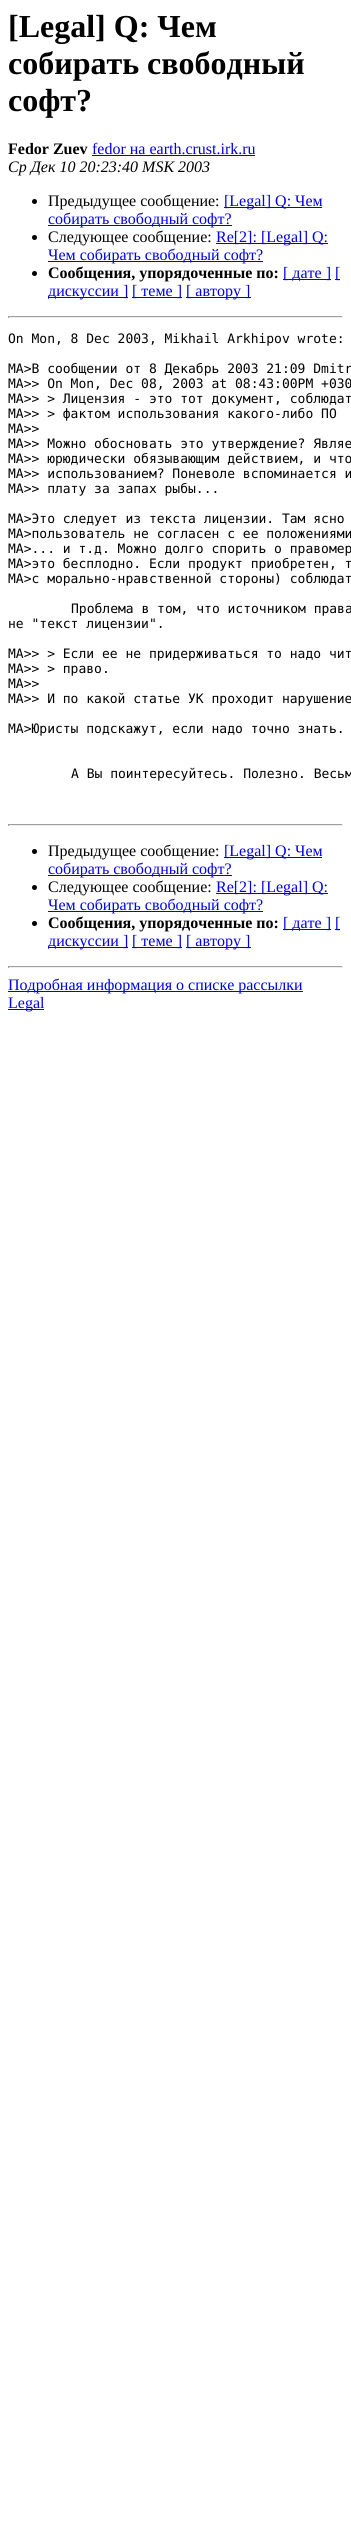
import math
import cairo



def draw(context):
    context.set_source_rgb(1, 1, 1)
    context.paint()
    context.set_source_rgb(0, 0, 238 / 255)
    context.rectangle(92, 155, 163, 1)
    context.fill()
    context.set_source_rgb(0, 0, 0)
    context.arc(34.5, 201.5, 2.5, 0, 2 * math.pi)
    context.fill()
    context.set_source_rgb(0, 0, 238 / 255)
    context.rectangle(224, 207, 98, 1)
    context.fill()
    context.rectangle(48, 225, 184, 1)
    context.fill()
    context.set_source_rgb(0, 0, 0)
    context.arc(34.5, 237.5, 2.5, 0, 2 * math.pi)
    context.fill()
    context.set_source_rgb(0, 0, 238 / 255)
    context.rectangle(216, 243, 112, 1)
    context.fill()
    context.rectangle(48, 261, 215, 1)
    context.fill()
    context.set_source_rgb(0, 0, 0)
    context.arc(34.5, 273.5, 2.5, 0, 2 * math.pi)
    context.fill()
    context.set_source_rgb(0, 0, 238 / 255)
    context.rectangle(283, 279, 48, 1)
    context.fill()
    context.rectangle(335, 279, 5, 1)
    context.fill()
    context.rectangle(48, 297, 80, 1)
    context.fill()
    context.rectangle(132, 297, 50, 1)
    context.fill()
    context.rectangle(186, 297, 65, 1)
    context.fill()
    context.set_source_rgb(159 / 255, 159 / 255, 159 / 255)
    context.rectangle(8, 316, 335, 1)
    context.fill()
    context.set_source_rgb(238 / 255, 238 / 255, 238 / 255)
    context.rectangle(342, 316, 1, 2)
    context.fill()
    context.rectangle(8, 317, 335, 1)
    context.fill()
    context.set_source_rgb(159 / 255, 159 / 255, 159 / 255)
    context.rectangle(8, 316, 1, 2)
    context.fill()
    context.rectangle(8, 824, 335, 1)
    context.fill()
    context.set_source_rgb(238 / 255, 238 / 255, 238 / 255)
    context.rectangle(342, 824, 1, 2)
    context.fill()
    context.rectangle(8, 825, 335, 1)
    context.fill()
    context.set_source_rgb(159 / 255, 159 / 255, 159 / 255)
    context.rectangle(8, 824, 1, 2)
    context.fill()
    context.set_source_rgb(0, 0, 0)
    context.arc(34.5, 851.5, 2.5, 0, 2 * math.pi)
    context.fill()
    context.set_source_rgb(0, 0, 238 / 255)
    context.rectangle(224, 857, 98, 1)
    context.fill()
    context.rectangle(48, 875, 184, 1)
    context.fill()
    context.set_source_rgb(0, 0, 0)
    context.arc(34.5, 887.5, 2.5, 0, 2 * math.pi)
    context.fill()
    context.set_source_rgb(0, 0, 238 / 255)
    context.rectangle(216, 893, 112, 1)
    context.fill()
    context.rectangle(48, 911, 215, 1)
    context.fill()
    context.set_source_rgb(0, 0, 0)
    context.arc(34.5, 923.5, 2.5, 0, 2 * math.pi)
    context.fill()
    context.set_source_rgb(0, 0, 238 / 255)
    context.rectangle(283, 929, 48, 1)
    context.fill()
    context.rectangle(335, 929, 5, 1)
    context.fill()
    context.rectangle(48, 947, 80, 1)
    context.fill()
    context.rectangle(132, 947, 50, 1)
    context.fill()
    context.rectangle(186, 947, 65, 1)
    context.fill()
    context.set_source_rgb(159 / 255, 159 / 255, 159 / 255)
    context.rectangle(8, 966, 335, 1)
    context.fill()
    context.set_source_rgb(238 / 255, 238 / 255, 238 / 255)
    context.rectangle(342, 966, 1, 2)
    context.fill()
    context.rectangle(8, 967, 335, 1)
    context.fill()
    context.set_source_rgb(159 / 255, 159 / 255, 159 / 255)
    context.rectangle(8, 966, 1, 2)
    context.fill()
    context.set_source_rgb(0, 0, 238 / 255)
    context.rectangle(8, 991, 295, 1)
    context.fill()
    context.rectangle(8, 1009, 36, 1)
    context.fill()
    context.select_font_face("Liberation Serif", cairo.FontSlant.NORMAL, cairo.FontWeight.BOLD)
    context.set_font_size(32)
    context.set_source_rgb(0, 0, 0)
    context.move_to(8, 37)
    context.show_text("[Legal] Q: Чем")
    context.move_to(8, 74)
    context.show_text("собирать свободный")
    context.move_to(8, 111)
    context.show_text("софт?")
    context.set_font_size(16)
    context.move_to(8, 154)
    context.show_text("Fedor Zuev")
    context.select_font_face("Liberation Serif")
    context.set_source_rgb(0, 0, 238 / 255)
    context.move_to(92, 154)
    context.show_text("fedor на earth.crust.irk.ru")
    context.select_font_face("Liberation Serif", cairo.FontSlant.ITALIC)
    context.set_source_rgb(0, 0, 0)
    context.move_to(8, 172)
    context.show_text("Ср Дек 10 20:23:40 MSK 2003")
    context.select_font_face("Liberation Serif")
    context.move_to(48, 206)
    context.show_text("Предыдущее сообщение:")
    context.set_source_rgb(0, 0, 238 / 255)
    context.move_to(224, 206)
    context.show_text("[Legal] Q: Чем")
    context.move_to(48, 224)
    context.show_text("собирать свободный софт?")
    context.set_source_rgb(0, 0, 0)
    context.move_to(48, 242)
    context.show_text("Следующее сообщение:")
    context.set_source_rgb(0, 0, 238 / 255)
    context.move_to(216, 242)
    context.show_text("Re[2]: [Legal] Q:")
    context.move_to(48, 260)
    context.show_text("Чем собирать свободный софт?")
    context.select_font_face("Liberation Serif", cairo.FontSlant.NORMAL, cairo.FontWeight.BOLD)
    context.set_source_rgb(0, 0, 0)
    context.move_to(48, 278)
    context.show_text("Сообщения, упорядоченные по:")
    context.select_font_face("Liberation Serif")
    context.set_source_rgb(0, 0, 238 / 255)
    context.move_to(283, 278)
    context.show_text("[ дате ]")
    context.move_to(335, 278)
    context.show_text("[")
    context.move_to(48, 296)
    context.show_text("дискуссии ]")
    context.move_to(132, 296)
    context.show_text("[ теме ]")
    context.move_to(186, 296)
    context.show_text("[ автору ]")
    context.select_font_face("DejaVu Sans Mono")
    context.set_font_size(13)
    context.set_source_rgb(0, 0, 0)
    context.move_to(8, 343)
    context.show_text("On Mon, 8 Dec 2003, Mikhail Arkhipov wrote:")
    context.move_to(8, 373)
    context.show_text("MA>В сообщении от 8 Декабрь 2003 21:09 Dmitr")
    context.move_to(8, 388)
    context.show_text("MA>> On Mon, Dec 08, 2003 at 08:43:00PM +030")
    context.move_to(8, 403)
    context.show_text("MA>> > Лицензия - это тот документ, соблюдат")
    context.move_to(8, 418)
    context.show_text("MA>> > фактом использования какого-либо ПО")
    context.move_to(8, 433)
    context.show_text("MA>>")
    context.move_to(8, 448)
    context.show_text("MA>> Можно обосновать это утверждение? Являе")
    context.move_to(8, 463)
    context.show_text("MA>> юрюдически обязывающим действием, и что")
    context.move_to(8, 478)
    context.show_text("MA>> использованием? Поневоле вспоминается и")
    context.move_to(8, 493)
    context.show_text("MA>> плату за запах рыбы...")
    context.move_to(8, 523)
    context.show_text("MA>Это следует из текста лицензии. Там ясно")
    context.move_to(8, 538)
    context.show_text("MA>пользователь не согласен с ее положениями")
    context.move_to(8, 553)
    context.show_text("MA>... и т.д. Можно долго спорить о правомер")
    context.move_to(8, 568)
    context.show_text("MA>это бесплодно. Если продукт приобретен, т")
    context.move_to(8, 583)
    context.show_text("MA>с морально-нравственной стороны) соблюдат")
    context.move_to(71, 613)
    context.show_text("Проблема в том, что источником права")
    context.move_to(8, 628)
    context.show_text("не \"текст лицензии\".")
    context.move_to(8, 658)
    context.show_text("MA>> > Если ее не придерживаться то надо чит")
    context.move_to(8, 673)
    context.show_text("MA>> > право.")
    context.move_to(8, 688)
    context.show_text("MA>>")
    context.move_to(8, 703)
    context.show_text("MA>> И по какой статье УК проходит нарушение")
    context.move_to(8, 733)
    context.show_text("MA>Юристы подскажут, если надо точно знать.")
    context.move_to(71, 778)
    context.show_text("А Вы поинтересуйтесь. Полезно. Весьм")
    context.select_font_face("Liberation Serif")
    context.set_font_size(16)
    context.move_to(48, 856)
    context.show_text("Предыдущее сообщение:")
    context.set_source_rgb(0, 0, 238 / 255)
    context.move_to(224, 856)
    context.show_text("[Legal] Q: Чем")
    context.move_to(48, 874)
    context.show_text("собирать свободный софт?")
    context.set_source_rgb(0, 0, 0)
    context.move_to(48, 892)
    context.show_text("Следующее сообщение:")
    context.set_source_rgb(0, 0, 238 / 255)
    context.move_to(216, 892)
    context.show_text("Re[2]: [Legal] Q:")
    context.move_to(48, 910)
    context.show_text("Чем собирать свободный софт?")
    context.select_font_face("Liberation Serif", cairo.FontSlant.NORMAL, cairo.FontWeight.BOLD)
    context.set_source_rgb(0, 0, 0)
    context.move_to(48, 928)
    context.show_text("Сообщения, упорядоченные по:")
    context.select_font_face("Liberation Serif")
    context.set_source_rgb(0, 0, 238 / 255)
    context.move_to(283, 928)
    context.show_text("[ дате ]")
    context.move_to(335, 928)
    context.show_text("[")
    context.move_to(48, 946)
    context.show_text("дискуссии ]")
    context.move_to(132, 946)
    context.show_text("[ теме ]")
    context.move_to(186, 946)
    context.show_text("[ автору ]")
    context.move_to(8, 990)
    context.show_text("Подробная информация о списке рассылки")
    context.move_to(8, 1008)
    context.show_text("Legal")


surface = cairo.ImageSurface(cairo.Format.RGB24, 351, 2532)
context = cairo.Context(surface)
options = cairo.FontOptions()
options.set_hint_metrics(cairo.HintMetrics.OFF)
options.set_hint_style(cairo.HintStyle.NONE)
context.set_font_options(options)
context.set_miter_limit(4)
draw(context)
surface.write_to_png("out.png")
